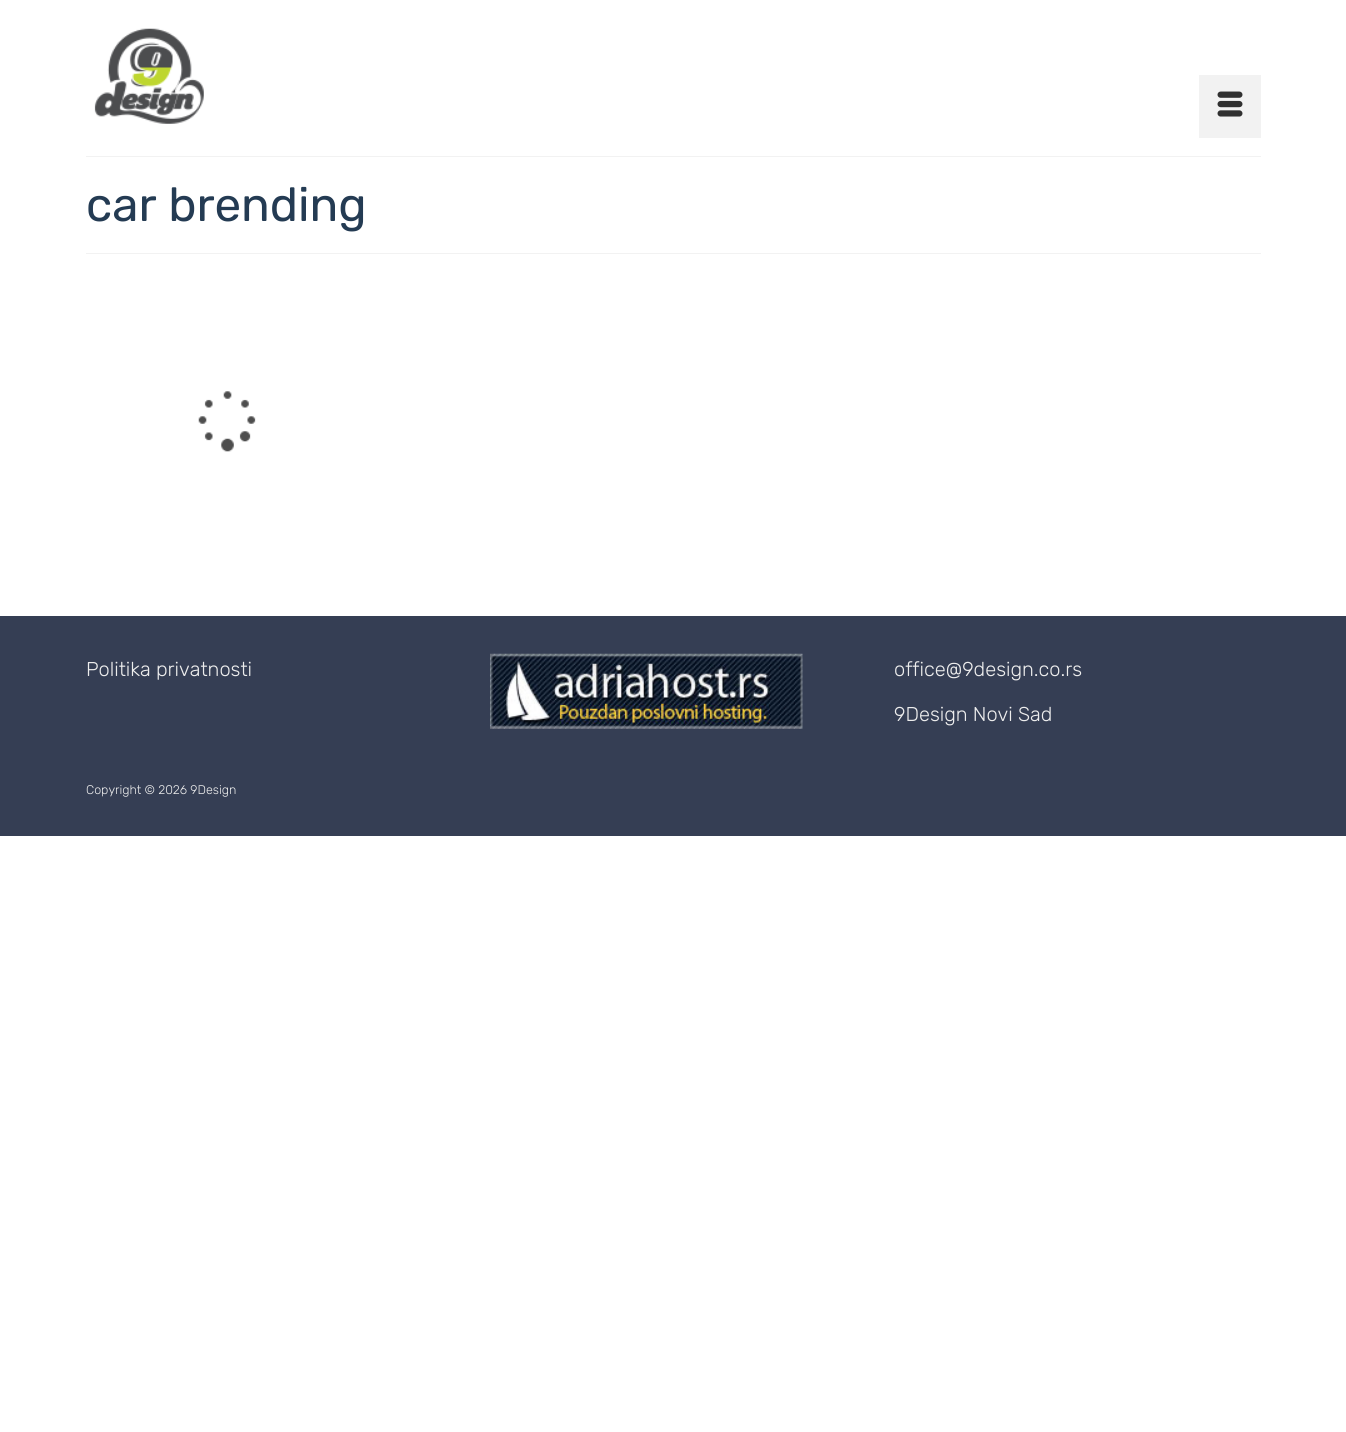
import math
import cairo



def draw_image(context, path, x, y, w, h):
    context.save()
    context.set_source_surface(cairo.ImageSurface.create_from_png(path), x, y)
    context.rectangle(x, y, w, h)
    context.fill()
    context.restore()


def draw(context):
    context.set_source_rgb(1, 1, 1)
    context.paint()
    draw_image(context, "images/1.png", 94, 28, 110, 96)
    context.set_source_rgb(242 / 255, 242 / 255, 242 / 255)
    context.rectangle(1199, 75, 62, 63)
    context.fill()
    draw_image(context, "images/2.png", 1217, 91, 26, 26)
    context.rectangle(86, 156, 1175, 1)
    context.fill()
    context.rectangle(86, 253, 1175, 1)
    context.fill()
    draw_image(context, "images/3.png", 198, 391, 58, 61)
    context.set_source_rgb(53 / 255, 62 / 255, 84 / 255)
    context.rectangle(0, 616, 1346, 220)
    context.fill()
    draw_image(context, "images/4.png", 490, 653, 313, 76)
    context.select_font_face("Rubik")
    context.set_font_size(47.5)
    context.set_source_rgb(36 / 255, 59 / 255, 83 / 255)
    context.move_to(86, 221)
    context.show_text("car brending")
    context.select_font_face("Rubik Light")
    context.set_font_size(20)
    context.set_source_rgb(237 / 255, 237 / 255, 237 / 255)
    context.move_to(86, 676)
    context.show_text("Politika privatnosti")
    context.move_to(894, 676)
    context.show_text("office@9design.co.rs")
    context.move_to(894, 721)
    context.show_text("9Design Novi Sad")
    context.set_font_size(12.5)
    context.move_to(86, 794)
    context.show_text("Copyright © 2026 9Design")


surface = cairo.ImageSurface(cairo.Format.RGB24, 1346, 1432)
context = cairo.Context(surface)
options = cairo.FontOptions()
options.set_hint_metrics(cairo.HintMetrics.OFF)
options.set_hint_style(cairo.HintStyle.NONE)
context.set_font_options(options)
context.set_miter_limit(4)
draw(context)
surface.write_to_png("out.png")
